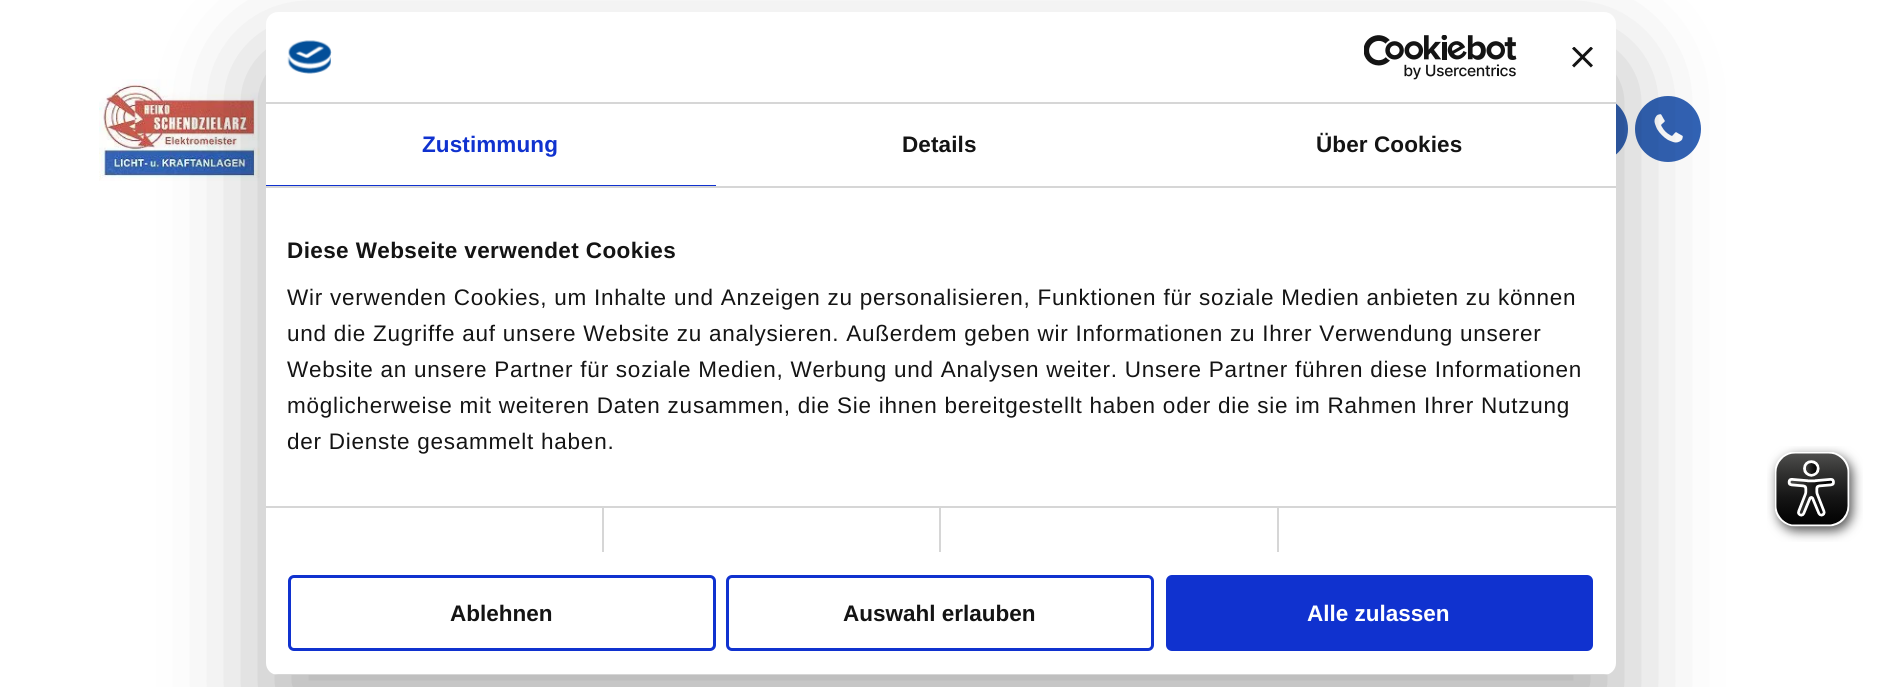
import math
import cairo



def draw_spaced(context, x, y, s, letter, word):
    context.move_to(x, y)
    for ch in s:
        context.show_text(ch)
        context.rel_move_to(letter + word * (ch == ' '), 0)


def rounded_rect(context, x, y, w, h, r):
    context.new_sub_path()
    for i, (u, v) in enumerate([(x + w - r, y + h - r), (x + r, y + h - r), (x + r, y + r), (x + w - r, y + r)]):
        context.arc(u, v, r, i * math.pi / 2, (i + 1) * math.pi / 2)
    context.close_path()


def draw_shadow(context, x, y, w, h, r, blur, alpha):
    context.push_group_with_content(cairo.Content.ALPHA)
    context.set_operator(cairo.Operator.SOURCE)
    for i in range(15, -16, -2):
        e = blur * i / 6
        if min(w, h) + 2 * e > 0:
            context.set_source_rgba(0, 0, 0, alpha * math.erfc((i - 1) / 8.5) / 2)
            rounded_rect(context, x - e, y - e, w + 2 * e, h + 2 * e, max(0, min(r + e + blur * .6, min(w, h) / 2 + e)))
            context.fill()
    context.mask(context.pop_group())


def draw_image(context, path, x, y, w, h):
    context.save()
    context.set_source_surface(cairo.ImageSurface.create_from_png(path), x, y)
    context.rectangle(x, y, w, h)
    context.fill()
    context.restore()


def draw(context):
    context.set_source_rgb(1, 1, 1)
    context.paint()
    draw_image(context, "images/1.png", 99, 79, 161, 102)
    context.set_source_rgb(50 / 255, 99 / 255, 181 / 255)
    context.arc(1595, 129, 33, 0, 2 * math.pi)
    context.fill()
    context.arc(1668, 129, 33, 0, 2 * math.pi)
    context.fill()
    draw_image(context, "images/2.png", 1654, 114, 29, 29)
    context.set_source_rgb(0, 0, 0)
    draw_shadow(context, 266, 60, 1350, 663, 12, 51, 0.3)
    context.set_source_rgb(1, 1, 1)
    rounded_rect(context, 266, 12, 1350, 663, 12)
    context.fill()
    context.set_source_rgb(214 / 255, 214 / 255, 214 / 255)
    context.rectangle(266, 102, 1350, 2)
    context.fill()
    draw_image(context, "images/3.png", 287, 40, 45, 34)
    draw_image(context, "images/4.png", 1364, 35, 153, 45)
    draw_image(context, "images/5.png", 1572, 47, 21, 21)
    context.rectangle(266, 186, 1350, 2)
    context.fill()
    context.set_source_rgb(16 / 255, 50 / 255, 207 / 255)
    context.rectangle(266, 185, 450, 1)
    context.fill()
    context.set_source_rgb(214 / 255, 214 / 255, 214 / 255)
    context.rectangle(602, 507, 2, 45)
    context.fill()
    context.rectangle(939, 507, 2, 45)
    context.fill()
    context.rectangle(1277, 507, 2, 45)
    context.fill()
    context.rectangle(266, 506, 1350, 2)
    context.fill()
    context.save()
    rounded_rect(context, 266, 12, 1350, 663, 12)
    context.clip()
    context.rectangle(266, 674, 1350, 1)
    context.fill()
    context.restore()
    rounded_rect(context, 289.5, 576.5, 425, 73, 4.5)
    context.set_source_rgb(16 / 255, 50 / 255, 207 / 255)
    context.set_line_width(3)
    context.stroke()
    rounded_rect(context, 727.5, 576.5, 425, 73, 4.5)
    context.stroke()
    rounded_rect(context, 1167.5, 576.5, 424, 73, 4.5)
    context.fill_preserve()
    context.stroke()
    draw_image(context, "images/6.png", 1767, 446, 96, 96)
    context.select_font_face("Liberation Sans", cairo.FontSlant.NORMAL, cairo.FontWeight.BOLD)
    context.set_font_size(22.5)
    draw_spaced(context, 422, 152, "Zustimmung", 0.1, 0)
    context.set_source_rgb(20 / 255, 20 / 255, 20 / 255)
    draw_spaced(context, 902, 152, "Details", 0.1, 0)
    draw_spaced(context, 1316, 152, "Über Cookies", 0.1, 0)
    draw_spaced(context, 287, 258, "Diese Webseite verwendet Cookies", 0.4, 0)
    context.select_font_face("Liberation Sans")
    draw_spaced(context, 287, 305, "Wir verwenden Cookies, um Inhalte und Anzeigen zu personalisieren, Funktionen für soziale Medien anbieten zu können", 0.75, 0)
    draw_spaced(context, 287, 341, "und die Zugriffe auf unsere Website zu analysieren. Außerdem geben wir Informationen zu Ihrer Verwendung unserer", 0.75, 0)
    draw_spaced(context, 287, 377, "Website an unsere Partner für soziale Medien, Werbung und Analysen weiter. Unsere Partner führen diese Informationen", 0.75, 0)
    draw_spaced(context, 287, 413, "möglicherweise mit weiteren Daten zusammen, die Sie ihnen bereitgestellt haben oder die sie im Rahmen Ihrer Nutzung", 0.75, 0)
    draw_spaced(context, 287, 449, "der Dienste gesammelt haben.", 0.75, 0)
    context.select_font_face("Liberation Sans", cairo.FontSlant.NORMAL, cairo.FontWeight.BOLD)
    context.move_to(450, 621)
    context.show_text("Ablehnen")
    context.move_to(843, 621)
    context.show_text("Auswahl erlauben")
    context.set_source_rgb(1, 1, 1)
    context.move_to(1307, 621)
    context.show_text("Alle zulassen")


surface = cairo.ImageSurface(cairo.Format.RGB24, 1879, 687)
context = cairo.Context(surface)
options = cairo.FontOptions()
options.set_hint_metrics(cairo.HintMetrics.OFF)
options.set_hint_style(cairo.HintStyle.NONE)
context.set_font_options(options)
context.set_miter_limit(4)
draw(context)
surface.write_to_png("out.png")
